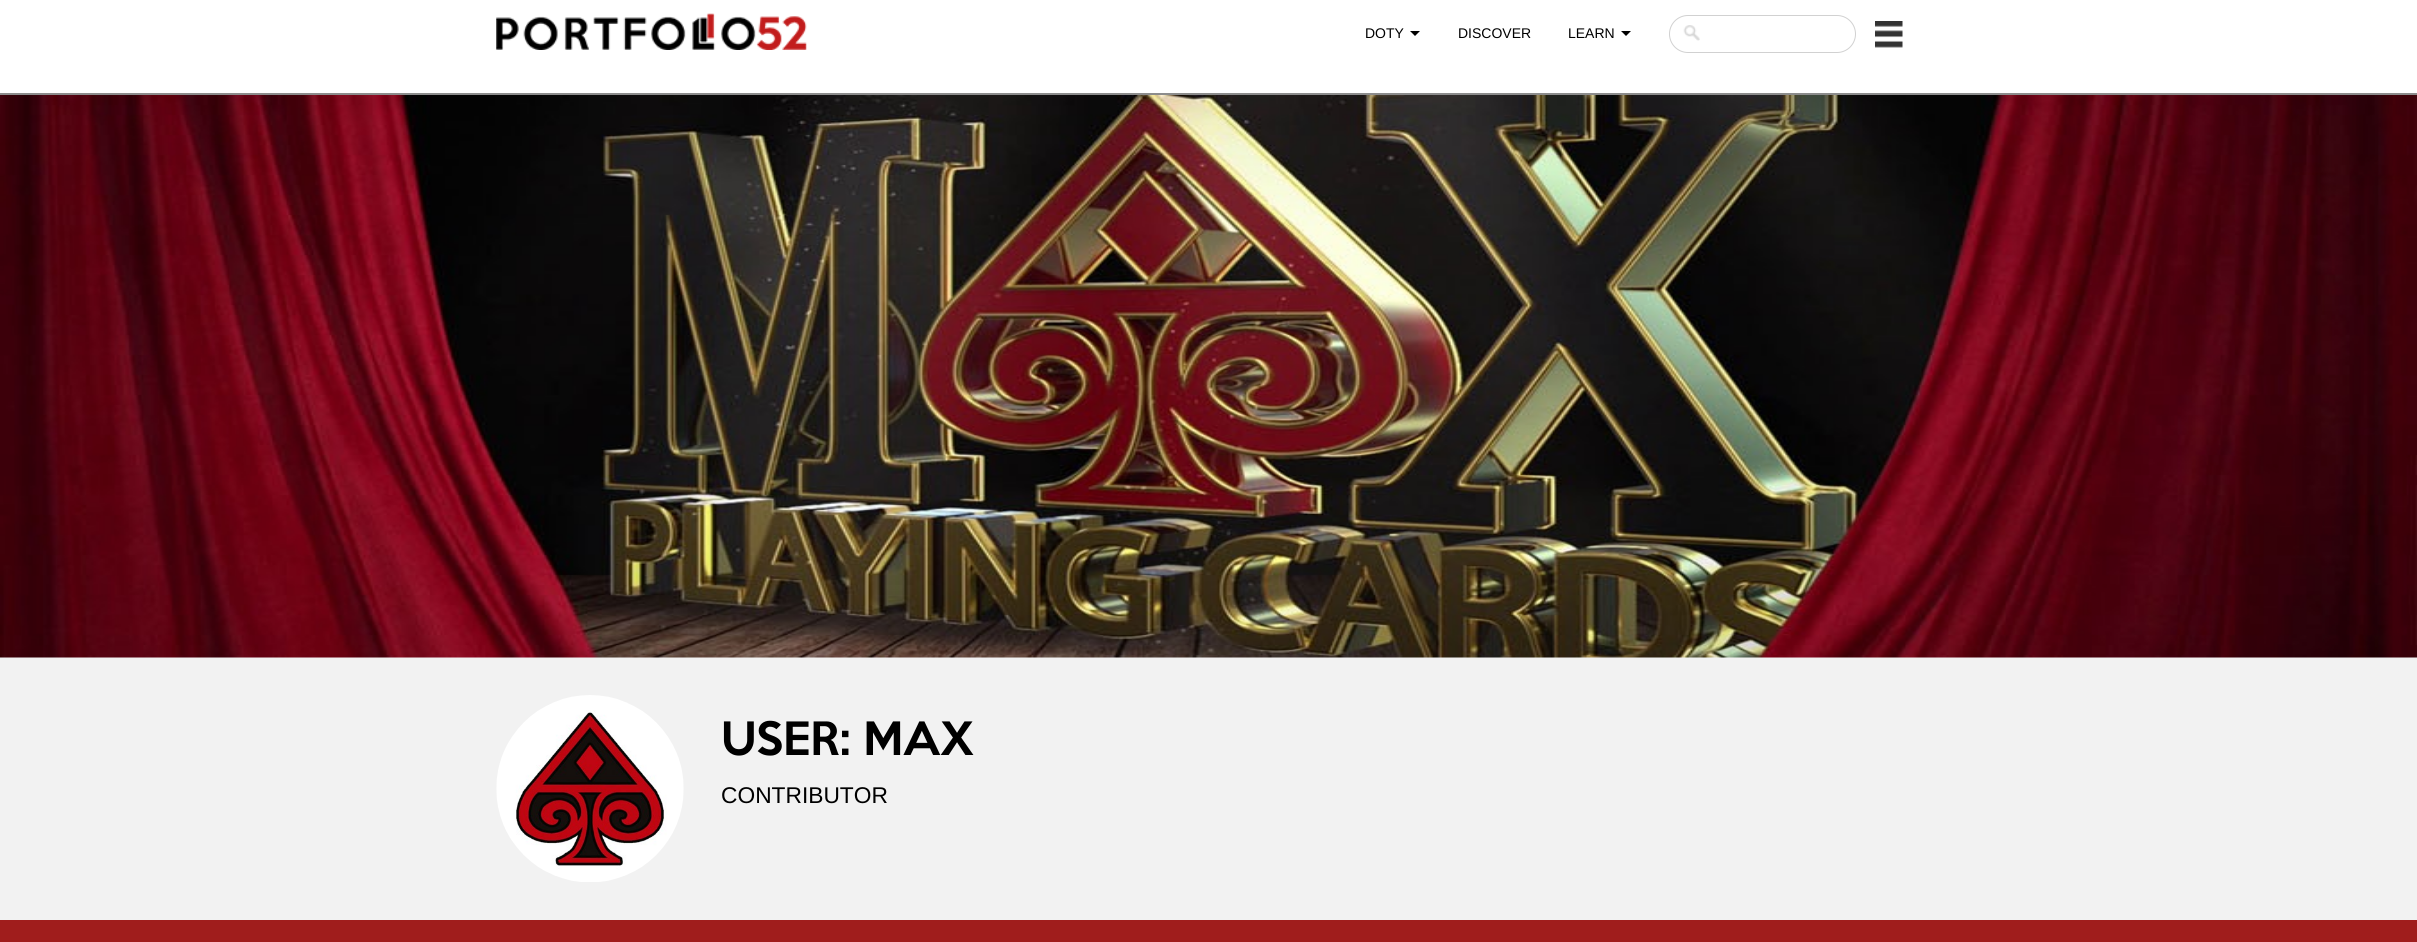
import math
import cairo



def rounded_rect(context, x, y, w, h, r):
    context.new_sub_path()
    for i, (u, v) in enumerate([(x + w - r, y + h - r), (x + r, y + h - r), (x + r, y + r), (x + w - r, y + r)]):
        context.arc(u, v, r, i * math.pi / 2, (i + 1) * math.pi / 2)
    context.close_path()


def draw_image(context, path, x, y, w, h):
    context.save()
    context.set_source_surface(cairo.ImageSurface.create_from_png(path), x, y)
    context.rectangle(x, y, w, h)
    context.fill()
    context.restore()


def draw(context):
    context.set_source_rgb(242 / 255, 242 / 255, 242 / 255)
    context.paint()
    context.set_source_rgb(1, 1, 1)
    context.rectangle(0, 0, 2417, 93)
    context.fill()
    context.set_source_rgb(140 / 255, 140 / 255, 140 / 255)
    context.rectangle(0, 93, 2417, 2)
    context.fill()
    draw_image(context, "images/1.png", 496, 13, 311, 37)
    context.set_source_rgb(0, 0, 0)
    context.new_path()
    context.move_to(1410, 31)
    context.line_to(1420, 31)
    context.line_to(1415, 36)
    context.close_path()
    context.fill()
    context.new_path()
    context.move_to(1621, 31)
    context.line_to(1631, 31)
    context.line_to(1626, 36)
    context.close_path()
    context.fill()
    draw_image(context, "images/2.png", 1683, 25, 17, 16)
    rounded_rect(context, 1669.5, 15.5, 186, 37, 18.5)
    context.set_source_rgb(209 / 255, 209 / 255, 209 / 255)
    context.set_line_width(1)
    context.stroke()
    draw_image(context, "images/3.png", 1875, 21, 28, 27)
    draw_image(context, "images/4.png", 0, 95, 2417, 563)
    draw_image(context, "images/5.png", 496, 695, 188, 187)
    context.set_source_rgb(160 / 255, 29 / 255, 28 / 255)
    context.rectangle(0, 920, 2417, 22)
    context.fill()
    context.select_font_face("Liberation Sans")
    context.set_font_size(14)
    context.set_source_rgb(0, 0, 0)
    context.move_to(1365, 38)
    context.show_text("DOTY")
    context.move_to(1458, 38)
    context.show_text("DISCOVER")
    context.move_to(1568, 38)
    context.show_text("LEARN")
    context.select_font_face("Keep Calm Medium")
    context.set_font_size(42)
    context.move_to(721, 755)
    context.show_text("USER: MAX")
    context.select_font_face("Liberation Sans")
    context.set_font_size(22.75)
    context.move_to(721, 803)
    context.show_text("CONTRIBUTOR")


surface = cairo.ImageSurface(cairo.Format.RGB24, 2417, 942)
context = cairo.Context(surface)
options = cairo.FontOptions()
options.set_hint_metrics(cairo.HintMetrics.OFF)
options.set_hint_style(cairo.HintStyle.NONE)
context.set_font_options(options)
context.set_miter_limit(4)
draw(context)
surface.write_to_png("out.png")
